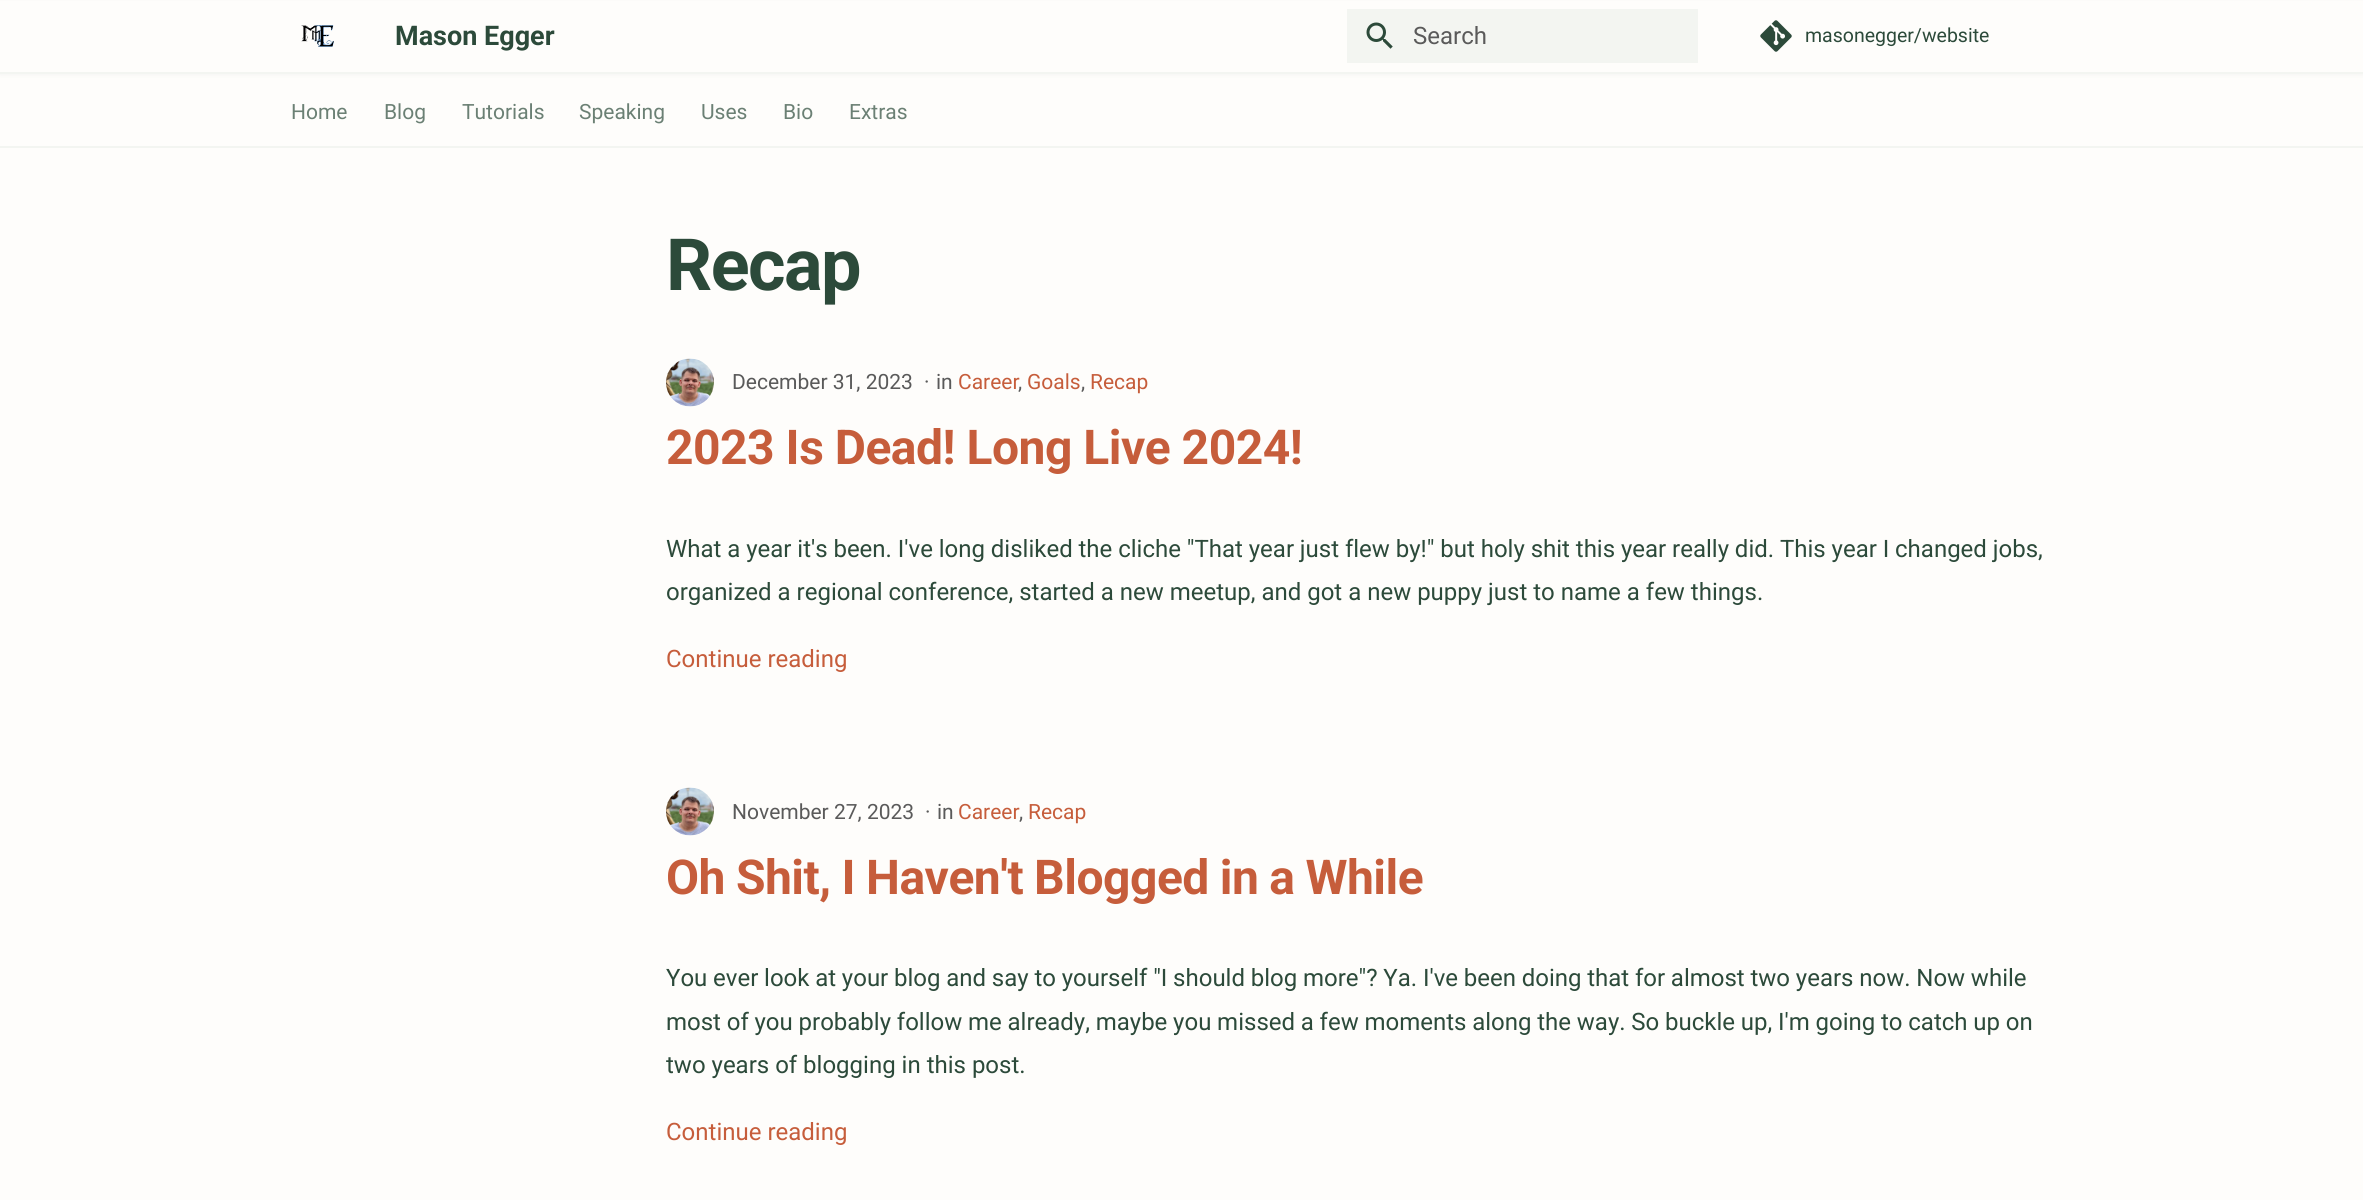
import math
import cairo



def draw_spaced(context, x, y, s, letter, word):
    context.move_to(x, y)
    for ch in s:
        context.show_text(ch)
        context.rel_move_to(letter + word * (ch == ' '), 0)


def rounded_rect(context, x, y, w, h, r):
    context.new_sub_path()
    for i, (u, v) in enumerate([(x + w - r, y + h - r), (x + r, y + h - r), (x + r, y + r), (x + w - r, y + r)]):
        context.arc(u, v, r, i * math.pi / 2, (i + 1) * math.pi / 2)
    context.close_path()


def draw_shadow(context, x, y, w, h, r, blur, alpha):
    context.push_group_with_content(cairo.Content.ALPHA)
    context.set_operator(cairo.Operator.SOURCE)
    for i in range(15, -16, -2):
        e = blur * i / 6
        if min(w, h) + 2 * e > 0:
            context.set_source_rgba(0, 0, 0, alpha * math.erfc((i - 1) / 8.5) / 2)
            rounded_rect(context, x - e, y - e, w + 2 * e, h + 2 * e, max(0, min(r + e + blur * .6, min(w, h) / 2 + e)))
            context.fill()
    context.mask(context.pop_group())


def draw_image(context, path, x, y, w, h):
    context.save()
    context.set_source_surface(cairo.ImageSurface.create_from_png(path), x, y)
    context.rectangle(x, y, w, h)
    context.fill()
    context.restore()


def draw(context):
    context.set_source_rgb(254 / 255, 253 / 255, 251 / 255)
    context.paint()
    context.set_source_rgb(44 / 255, 74 / 255, 58 / 255)
    draw_shadow(context, 0, 2, 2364, 73, 0, 2, 0.05)
    context.set_source_rgb(254 / 255, 253 / 255, 251 / 255)
    context.rectangle(0, 1, 2363, 71)
    context.fill()
    context.set_source_rgb(243 / 255, 245 / 255, 241 / 255)
    context.rectangle(0, 72, 2363, 2)
    context.fill()
    draw_image(context, "images/1.png", 301, 25, 33, 22)
    context.rectangle(1347, 9, 351, 54)
    context.fill()
    draw_image(context, "images/2.png", 1366, 22, 27, 27)
    draw_image(context, "images/3.png", 1760, 20, 32, 32)
    context.rectangle(0, 146, 2363, 2)
    context.fill()
    draw_image(context, "images/4.png", 666, 358, 48, 49)
    draw_image(context, "images/5.png", 666, 787, 48, 49)
    context.select_font_face("Roboto", cairo.FontSlant.NORMAL, cairo.FontWeight.BOLD)
    context.set_font_size(27)
    context.set_source_rgb(44 / 255, 74 / 255, 58 / 255)
    context.move_to(395, 45)
    context.show_text("Mason Egger")
    context.select_font_face("Roboto")
    context.set_font_size(24)
    context.set_source_rgb(90 / 255, 90 / 255, 90 / 255)
    context.move_to(1413, 44)
    context.show_text("Search")
    context.set_font_size(19.5)
    context.set_source_rgb(44 / 255, 74 / 255, 58 / 255)
    context.move_to(1805, 42)
    context.show_text("masonegger/website")
    context.set_font_size(21)
    context.set_source_rgb(107 / 255, 128 / 255, 116 / 255)
    context.move_to(291, 119)
    context.show_text("Home")
    context.move_to(384, 119)
    context.show_text("Blog")
    context.move_to(462, 119)
    context.show_text("Tutorials")
    context.move_to(579, 119)
    context.show_text("Speaking")
    context.move_to(701, 119)
    context.show_text("Uses")
    context.move_to(783, 119)
    context.show_text("Bio")
    context.move_to(849, 119)
    context.show_text("Extras")
    context.select_font_face("Roboto", cairo.FontSlant.NORMAL, cairo.FontWeight.BOLD)
    context.set_font_size(72)
    context.set_source_rgb(44 / 255, 74 / 255, 58 / 255)
    draw_spaced(context, 666, 290, "Recap", -1.5, 0)
    context.select_font_face("Roboto")
    context.set_font_size(21)
    context.set_source_rgb(90 / 255, 90 / 255, 90 / 255)
    context.move_to(732, 389)
    context.show_text("December 31, 2023")
    context.move_to(924, 389)
    context.show_text("·")
    context.move_to(936, 389)
    context.show_text("in")
    context.set_source_rgb(198 / 255, 93 / 255, 59 / 255)
    context.move_to(958, 389)
    context.show_text("Career")
    context.move_to(1027, 389)
    context.show_text("Goals")
    context.move_to(1090, 389)
    context.show_text("Recap")
    context.set_source_rgb(90 / 255, 90 / 255, 90 / 255)
    context.move_to(1018, 389)
    context.show_text(",")
    context.move_to(1081, 389)
    context.show_text(",")
    context.select_font_face("Roboto", cairo.FontSlant.NORMAL, cairo.FontWeight.BOLD)
    context.set_font_size(48)
    context.set_source_rgb(198 / 255, 93 / 255, 59 / 255)
    draw_spaced(context, 666, 464, "2023 Is Dead! Long Live 2024!", -0.5, 0)
    context.select_font_face("Roboto")
    context.set_font_size(24)
    context.set_source_rgb(44 / 255, 74 / 255, 58 / 255)
    draw_spaced(context, 666, 557, "What a year it's been. I've long disliked the cliche \"That year just flew by!\" but holy shit this year really did. This year I changed jobs,", 0, -0.1)
    context.move_to(666, 600)
    context.show_text("organized a regional conference, started a new meetup, and got a new puppy just to name a few things.")
    context.set_source_rgb(198 / 255, 93 / 255, 59 / 255)
    context.move_to(666, 667)
    context.show_text("Continue reading")
    context.set_font_size(21)
    context.set_source_rgb(90 / 255, 90 / 255, 90 / 255)
    context.move_to(732, 819)
    context.show_text("November 27, 2023")
    context.move_to(925, 819)
    context.show_text("·")
    context.move_to(937, 819)
    context.show_text("in")
    context.set_source_rgb(198 / 255, 93 / 255, 59 / 255)
    context.move_to(958, 819)
    context.show_text("Career")
    context.move_to(1028, 819)
    context.show_text("Recap")
    context.set_source_rgb(90 / 255, 90 / 255, 90 / 255)
    context.move_to(1019, 819)
    context.show_text(",")
    context.select_font_face("Roboto", cairo.FontSlant.NORMAL, cairo.FontWeight.BOLD)
    context.set_font_size(48)
    context.set_source_rgb(198 / 255, 93 / 255, 59 / 255)
    draw_spaced(context, 666, 894, "Oh Shit, I Haven't Blogged in a While", -0.5, -0.5)
    context.select_font_face("Roboto")
    context.set_font_size(24)
    context.set_source_rgb(44 / 255, 74 / 255, 58 / 255)
    draw_spaced(context, 666, 986, "You ever look at your blog and say to yourself \"I should blog more\"? Ya. I've been doing that for almost two years now. Now while", 0, -0.2)
    draw_spaced(context, 666, 1030, "most of you probably follow me already, maybe you missed a few moments along the way. So buckle up, I'm going to catch up on", 0, -0.2)
    context.move_to(666, 1073)
    context.show_text("two years of blogging in this post.")
    context.set_source_rgb(198 / 255, 93 / 255, 59 / 255)
    context.move_to(666, 1140)
    context.show_text("Continue reading")


surface = cairo.ImageSurface(cairo.Format.RGB24, 2363, 1200)
context = cairo.Context(surface)
options = cairo.FontOptions()
options.set_hint_metrics(cairo.HintMetrics.OFF)
options.set_hint_style(cairo.HintStyle.NONE)
context.set_font_options(options)
context.set_miter_limit(4)
draw(context)
surface.write_to_png("out.png")
